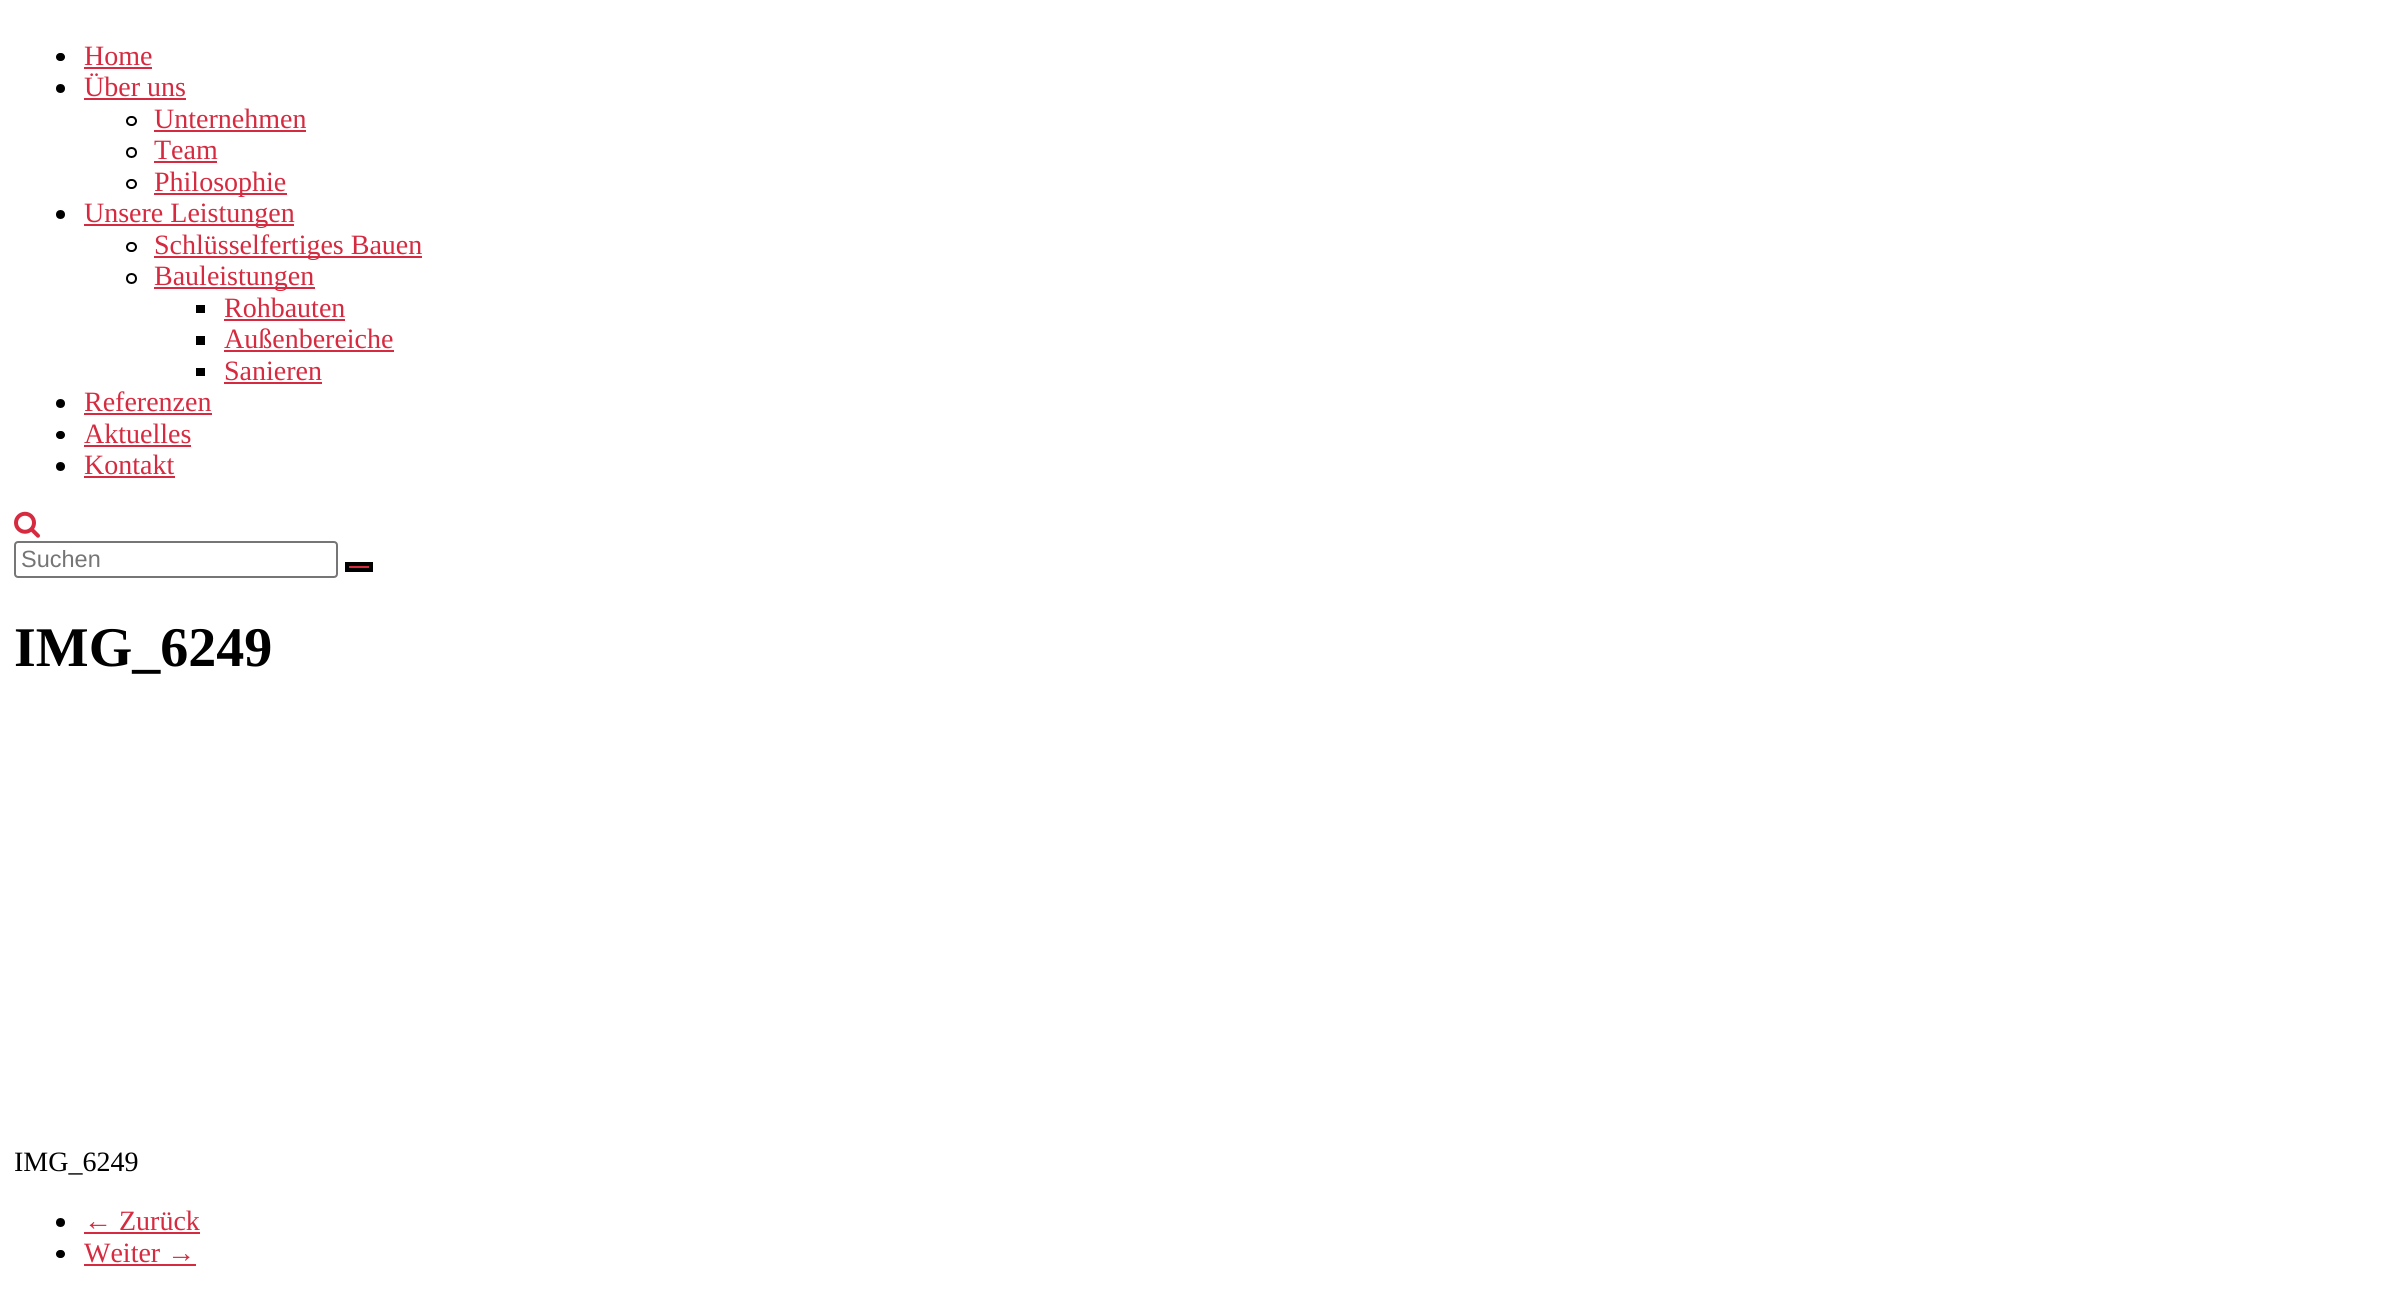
import math
import cairo



def rounded_rect(context, x, y, w, h, r):
    context.new_sub_path()
    for i, (u, v) in enumerate([(x + w - r, y + h - r), (x + r, y + h - r), (x + r, y + r), (x + w - r, y + r)]):
        context.arc(u, v, r, i * math.pi / 2, (i + 1) * math.pi / 2)
    context.close_path()


def draw_image(context, path, x, y, w, h):
    context.save()
    context.set_source_surface(cairo.ImageSurface.create_from_png(path), x, y)
    context.rectangle(x, y, w, h)
    context.fill()
    context.restore()


def draw(context):
    context.set_source_rgb(1, 1, 1)
    context.paint()
    context.set_source_rgb(0, 0, 0)
    rounded_rect(context, 56, 53, 9, 8, 4)
    context.fill()
    context.set_source_rgb(213 / 255, 42 / 255, 63 / 255)
    context.rectangle(84, 67, 68, 2)
    context.fill()
    context.set_source_rgb(0, 0, 0)
    context.arc(60.5, 88.5, 4.5, 0, 2 * math.pi)
    context.fill()
    context.set_source_rgb(213 / 255, 42 / 255, 63 / 255)
    context.rectangle(84, 98, 102, 2)
    context.fill()
    rounded_rect(context, 127, 117, 9, 8, 4)
    context.set_source_rgb(0, 0, 0)
    context.stroke()
    context.set_source_rgb(213 / 255, 42 / 255, 63 / 255)
    context.rectangle(154, 130, 152, 2)
    context.fill()
    context.arc(131.5, 152.5, 4.5, 0, 2 * math.pi)
    context.set_source_rgb(0, 0, 0)
    context.stroke()
    context.set_source_rgb(213 / 255, 42 / 255, 63 / 255)
    context.rectangle(154, 161, 63, 2)
    context.fill()
    rounded_rect(context, 127, 180, 9, 8, 4)
    context.set_source_rgb(0, 0, 0)
    context.stroke()
    context.set_source_rgb(213 / 255, 42 / 255, 63 / 255)
    context.rectangle(154, 193, 133, 2)
    context.fill()
    context.set_source_rgb(0, 0, 0)
    context.arc(60.5, 214.5, 4.5, 0, 2 * math.pi)
    context.fill()
    context.set_source_rgb(213 / 255, 42 / 255, 63 / 255)
    context.rectangle(84, 224, 210, 2)
    context.fill()
    rounded_rect(context, 127, 243, 9, 8, 4)
    context.set_source_rgb(0, 0, 0)
    context.stroke()
    context.set_source_rgb(213 / 255, 42 / 255, 63 / 255)
    context.rectangle(154, 256, 268, 2)
    context.fill()
    context.arc(131.5, 278.5, 4.5, 0, 2 * math.pi)
    context.set_source_rgb(0, 0, 0)
    context.stroke()
    context.set_source_rgb(213 / 255, 42 / 255, 63 / 255)
    context.rectangle(154, 287, 161, 2)
    context.fill()
    context.set_source_rgb(0, 0, 0)
    context.rectangle(196, 305, 9, 8)
    context.fill()
    context.set_source_rgb(213 / 255, 42 / 255, 63 / 255)
    context.rectangle(224, 319, 121, 2)
    context.fill()
    context.set_source_rgb(0, 0, 0)
    context.rectangle(196, 336, 9, 9)
    context.fill()
    context.set_source_rgb(213 / 255, 42 / 255, 63 / 255)
    context.rectangle(224, 350, 170, 2)
    context.fill()
    context.set_source_rgb(0, 0, 0)
    context.rectangle(196, 368, 9, 8)
    context.fill()
    context.set_source_rgb(213 / 255, 42 / 255, 63 / 255)
    context.rectangle(224, 382, 98, 2)
    context.fill()
    context.set_source_rgb(0, 0, 0)
    context.arc(60.5, 403.5, 4.5, 0, 2 * math.pi)
    context.fill()
    context.set_source_rgb(213 / 255, 42 / 255, 63 / 255)
    context.rectangle(84, 413, 128, 2)
    context.fill()
    context.set_source_rgb(0, 0, 0)
    rounded_rect(context, 56, 431, 9, 8, 4)
    context.fill()
    context.set_source_rgb(213 / 255, 42 / 255, 63 / 255)
    context.rectangle(84, 445, 107, 2)
    context.fill()
    context.set_source_rgb(0, 0, 0)
    context.arc(60.5, 466.5, 4.5, 0, 2 * math.pi)
    context.fill()
    context.set_source_rgb(213 / 255, 42 / 255, 63 / 255)
    context.rectangle(84, 476, 91, 2)
    context.fill()
    draw_image(context, "images/1.png", 14, 511, 26, 27)
    rounded_rect(context, 15, 542, 322, 35, 3)
    context.set_source_rgb(118 / 255, 118 / 255, 118 / 255)
    context.stroke()
    context.set_source_rgb(213 / 255, 42 / 255, 63 / 255)
    context.rectangle(347, 564, 24, 6)
    context.fill_preserve()
    context.set_source_rgb(0, 0, 0)
    context.set_line_width(4)
    context.stroke()
    context.arc(60.5, 1222.5, 4.5, 0, 2 * math.pi)
    context.fill()
    context.set_source_rgb(213 / 255, 42 / 255, 63 / 255)
    context.rectangle(84, 1232, 116, 2)
    context.fill()
    context.set_source_rgb(0, 0, 0)
    rounded_rect(context, 56, 1250, 9, 8, 4)
    context.fill()
    context.set_source_rgb(213 / 255, 42 / 255, 63 / 255)
    context.rectangle(84, 1264, 112, 2)
    context.fill()
    context.select_font_face("Liberation Serif")
    context.set_font_size(28)
    context.move_to(84, 65)
    context.show_text("Home")
    context.move_to(84, 96)
    context.show_text("Über uns")
    context.move_to(154, 128)
    context.show_text("Unternehmen")
    context.move_to(154, 159)
    context.show_text("Team")
    context.move_to(154, 191)
    context.show_text("Philosophie")
    context.move_to(84, 222)
    context.show_text("Unsere Leistungen")
    context.move_to(154, 254)
    context.show_text("Schlüsselfertiges Bauen")
    context.move_to(154, 285)
    context.show_text("Bauleistungen")
    context.move_to(224, 317)
    context.show_text("Rohbauten")
    context.move_to(224, 348)
    context.show_text("Außenbereiche")
    context.move_to(224, 380)
    context.show_text("Sanieren")
    context.move_to(84, 411)
    context.show_text("Referenzen")
    context.move_to(84, 443)
    context.show_text("Aktuelles")
    context.move_to(84, 474)
    context.show_text("Kontakt")
    context.select_font_face("Liberation Sans")
    context.set_font_size(23.5)
    context.set_source_rgb(117 / 255, 117 / 255, 117 / 255)
    context.move_to(21, 567)
    context.show_text("Suchen")
    context.select_font_face("Liberation Serif", cairo.FontSlant.NORMAL, cairo.FontWeight.BOLD)
    context.set_font_size(56)
    context.set_source_rgb(0, 0, 0)
    context.move_to(14, 666)
    context.show_text("IMG_6249")
    context.select_font_face("Liberation Serif")
    context.set_font_size(28)
    context.move_to(14, 1171)
    context.show_text("IMG_6249")
    context.set_source_rgb(213 / 255, 42 / 255, 63 / 255)
    context.move_to(84, 1230)
    context.show_text("← Zurück")
    context.move_to(84, 1262)
    context.show_text("Weiter →")


surface = cairo.ImageSurface(cairo.Format.RGB24, 2408, 1290)
context = cairo.Context(surface)
options = cairo.FontOptions()
options.set_hint_metrics(cairo.HintMetrics.OFF)
options.set_hint_style(cairo.HintStyle.NONE)
context.set_font_options(options)
context.set_miter_limit(4)
draw(context)
surface.write_to_png("out.png")
